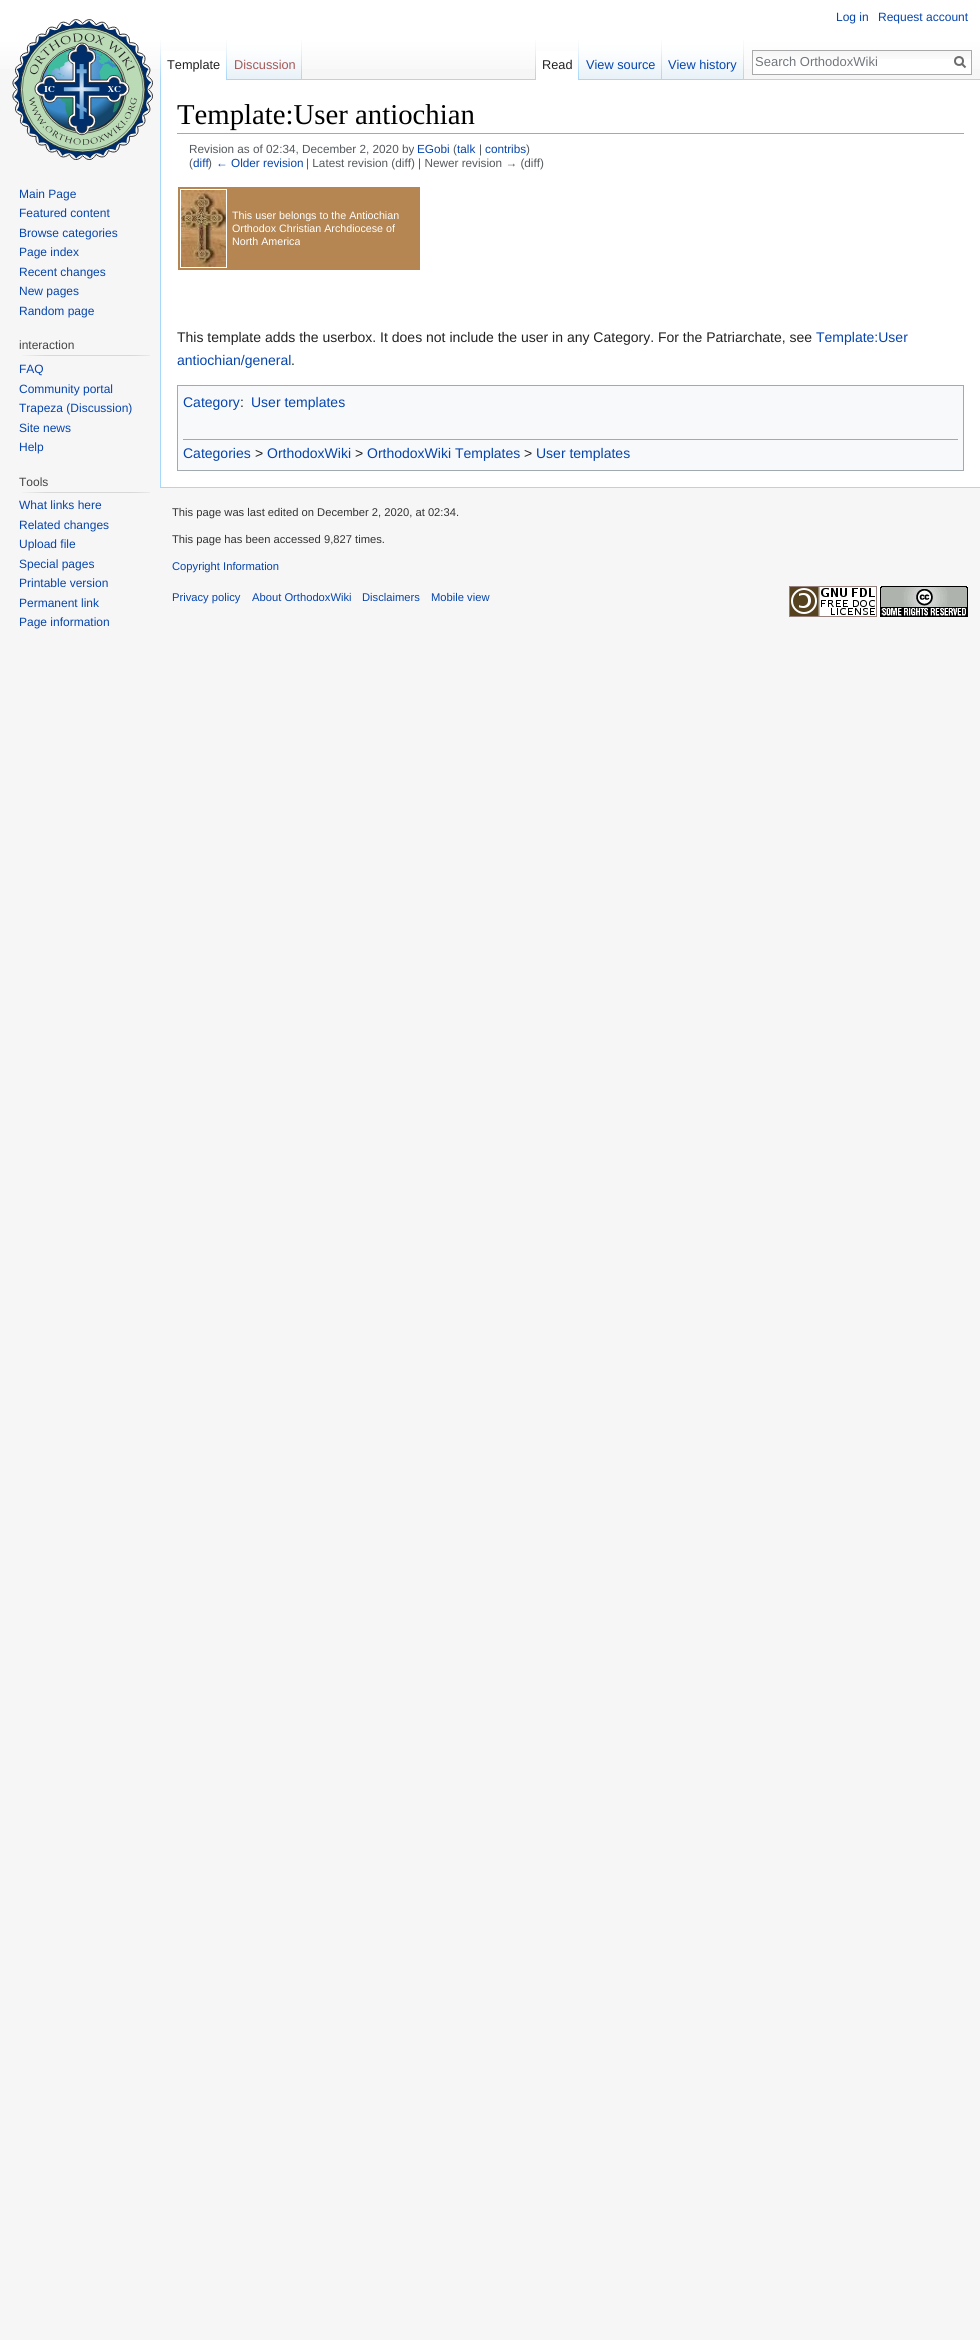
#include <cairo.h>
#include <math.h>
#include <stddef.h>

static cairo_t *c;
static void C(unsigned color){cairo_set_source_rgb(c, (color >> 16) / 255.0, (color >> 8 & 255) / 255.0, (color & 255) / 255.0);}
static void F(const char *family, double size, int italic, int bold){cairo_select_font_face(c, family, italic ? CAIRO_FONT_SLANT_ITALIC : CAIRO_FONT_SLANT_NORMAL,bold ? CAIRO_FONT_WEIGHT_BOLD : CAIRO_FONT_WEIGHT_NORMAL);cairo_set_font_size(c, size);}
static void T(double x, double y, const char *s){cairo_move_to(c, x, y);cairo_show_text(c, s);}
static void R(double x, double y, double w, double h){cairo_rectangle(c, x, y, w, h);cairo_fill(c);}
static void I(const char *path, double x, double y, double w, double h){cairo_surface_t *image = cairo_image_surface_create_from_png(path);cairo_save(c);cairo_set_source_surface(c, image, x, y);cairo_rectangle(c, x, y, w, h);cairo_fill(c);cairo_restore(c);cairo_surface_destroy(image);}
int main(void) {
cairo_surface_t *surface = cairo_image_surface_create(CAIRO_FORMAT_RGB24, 980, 2340);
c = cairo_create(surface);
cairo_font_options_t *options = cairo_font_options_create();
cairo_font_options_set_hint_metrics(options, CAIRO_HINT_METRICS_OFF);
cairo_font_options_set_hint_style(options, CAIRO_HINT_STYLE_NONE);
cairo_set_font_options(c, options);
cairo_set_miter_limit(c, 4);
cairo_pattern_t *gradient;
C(0xf6f6f6);
cairo_paint(c);
gradient = cairo_pattern_create_linear(490,0,490,80);
cairo_pattern_add_color_stop_rgba(gradient,.5,1,1,1,1);
cairo_pattern_add_color_stop_rgba(gradient,1,0.965,0.965,0.965,1);
cairo_set_source(c,gradient);
cairo_pattern_destroy(gradient);
R(0,0,980,69);
F("Liberation Sans",12,0,0);
C(0x0645ad);
T(836,21,"Log in");
T(878,21,"Request account");
I("1.png",160,40,1,39);
C(0xffffff);
R(161,51,65,29);
I("2.png",226,40,1,40);
F("Liberation Sans",12.75,0,0);
C(0x222222);
T(167,69,"Template");
I("3.png",227,40,75,40);
I("1.png",301,40,1,39);
C(0xa55858);
T(234,69,"Discussion");
I("1.png",535,40,1,39);
C(0xa7d7f9);
R(302,79,678,1);
C(0xffffff);
R(536,51,42,29);
I("2.png",578,40,1,40);
C(0x222222);
T(542,69,"Read");
I("4.png",579,40,83,40);
I("1.png",661,40,1,39);
C(0x0645ad);
T(586,69,"View source");
I("5.png",662,40,82,40);
I("1.png",743,40,1,39);
T(668,69,"View history");
C(0xffffff);
R(753,59,218,15);
I("6.png",753,51,218,8);
cairo_rectangle(c,752.5,50.5,219,24);
C(0xaaaaaa);
cairo_set_line_width(c,1);
cairo_stroke(c);
F("Liberation Sans",13,0,0);
C(0x72777d);
T(755,66,"Search OrthodoxWiki");
cairo_new_path(c);
cairo_move_to(c,965.5,67.5);
cairo_line_to(c,961.5,63.5);
C(0x6c6c6c);
cairo_set_line_width(c,2);
cairo_stroke(c);
cairo_arc(c,959,61,4,0,2 * M_PI);
cairo_stroke(c);
I("7.png",12,19,141,141);
F("Liberation Sans",12,0,0);
C(0x0645ad);
T(19,198,"Main Page");
T(19,217,"Featured content");
T(19,237,"Browse categories");
T(19,256,"Page index");
T(19,276,"Recent changes");
T(19,295,"New pages");
T(19,315,"Random page");
C(0x444444);
T(19,349,"interaction");
I("8.png",22,355,128,1);
C(0x0645ad);
T(19,373,"FAQ");
T(19,393,"Community portal");
T(19,412,"Trapeza (Discussion)");
T(19,432,"Site news");
T(19,451,"Help");
C(0x444444);
T(19,486,"Tools");
I("8.png",22,492,128,1);
C(0x0645ad);
T(19,509,"What links here");
T(19,529,"Related changes");
T(19,548,"Upload file");
T(19,568,"Special pages");
T(19,587,"Printable version");
T(19,607,"Permanent link");
T(19,626,"Page information");
C(0xffffff);
R(161,80,819,407);
C(0xa7d7f9);
R(160,487,820,1);
R(160,79,1,409);
C(0xa2a9b1);
R(177,133,787,1);
F("Liberation Serif",28.75,0,0);
C(0x000000);
T(177,124,"Template:User antiochian");
F("Liberation Sans",11.75,0,0);
C(0x54595d);
T(189,153,"Revision as of 02:34, December 2, 2020 by");
C(0x0645ad);
T(417,153,"EGobi");
C(0x54595d);
T(453,153,"(");
C(0x0645ad);
T(457,153,"talk");
C(0x54595d);
T(479,153,"|");
C(0x0645ad);
T(485,153,"contribs");
C(0x54595d);
T(526,153,")");
T(189,167,"(");
C(0x0645ad);
T(193,167,"diff");
C(0x54595d);
T(208,167,")");
C(0x0645ad);
T(216,167,"← Older revision");
C(0x54595d);
T(306,167,"| Latest revision (diff) | Newer revision → (diff)");
cairo_rectangle(c,179,188,240,81);
C(0xb58652);
cairo_stroke(c);
R(227,189,191,79);
I("9.png",181,190,45,77);
F("Liberation Sans",10.7,0,0);
C(0xffffff);
T(232,219,"This user belongs to the Antiochian");
T(232,232,"Orthodox Christian Archdiocese of");
T(232,245,"North America");
F("Liberation Sans",14,0,0);
C(0x222222);
T(177,342,"This template adds the userbox. It does not include the user in any Category. For the Patriarchate, see");
C(0x0645ad);
T(816,342,"Template:User");
T(177,365,"antiochian/general");
C(0x222222);
T(291,365,".");
C(0xf8f9fa);
cairo_rectangle(c,177.5,385.5,786,85);
cairo_fill_preserve(c);
C(0xa2a9b1);
cairo_set_line_width(c,1);
cairo_stroke(c);
C(0x0645ad);
T(183,407,"Category");
C(0x222222);
T(240,407,":");
C(0x0645ad);
T(251,407,"User templates");
C(0xa2a9b1);
R(183,439,775,1);
C(0x0645ad);
T(183,458,"Categories");
C(0x222222);
T(255,458,">");
C(0x0645ad);
T(267,458,"OrthodoxWiki");
C(0x222222);
T(355,458,">");
C(0x0645ad);
T(367,458,"OrthodoxWiki Templates");
C(0x222222);
T(524,458,">");
C(0x0645ad);
T(536,458,"User templates");
F("Liberation Sans",11.2,0,0);
C(0x333333);
T(172,516,"This page was last edited on December 2, 2020, at 02:34.");
T(172,543,"This page has been accessed 9,827 times.");
C(0x0645ad);
T(172,570,"Copyright Information");
T(172,601,"Privacy policy");
T(252,601,"About OrthodoxWiki");
T(362,601,"Disclaimers");
T(431,601,"Mobile view");
I("10.png",789,586,179,31);
cairo_surface_write_to_png(surface, "o.png");
cairo_font_options_destroy(options);
cairo_destroy(c);
cairo_surface_destroy(surface);
return 0;
}
